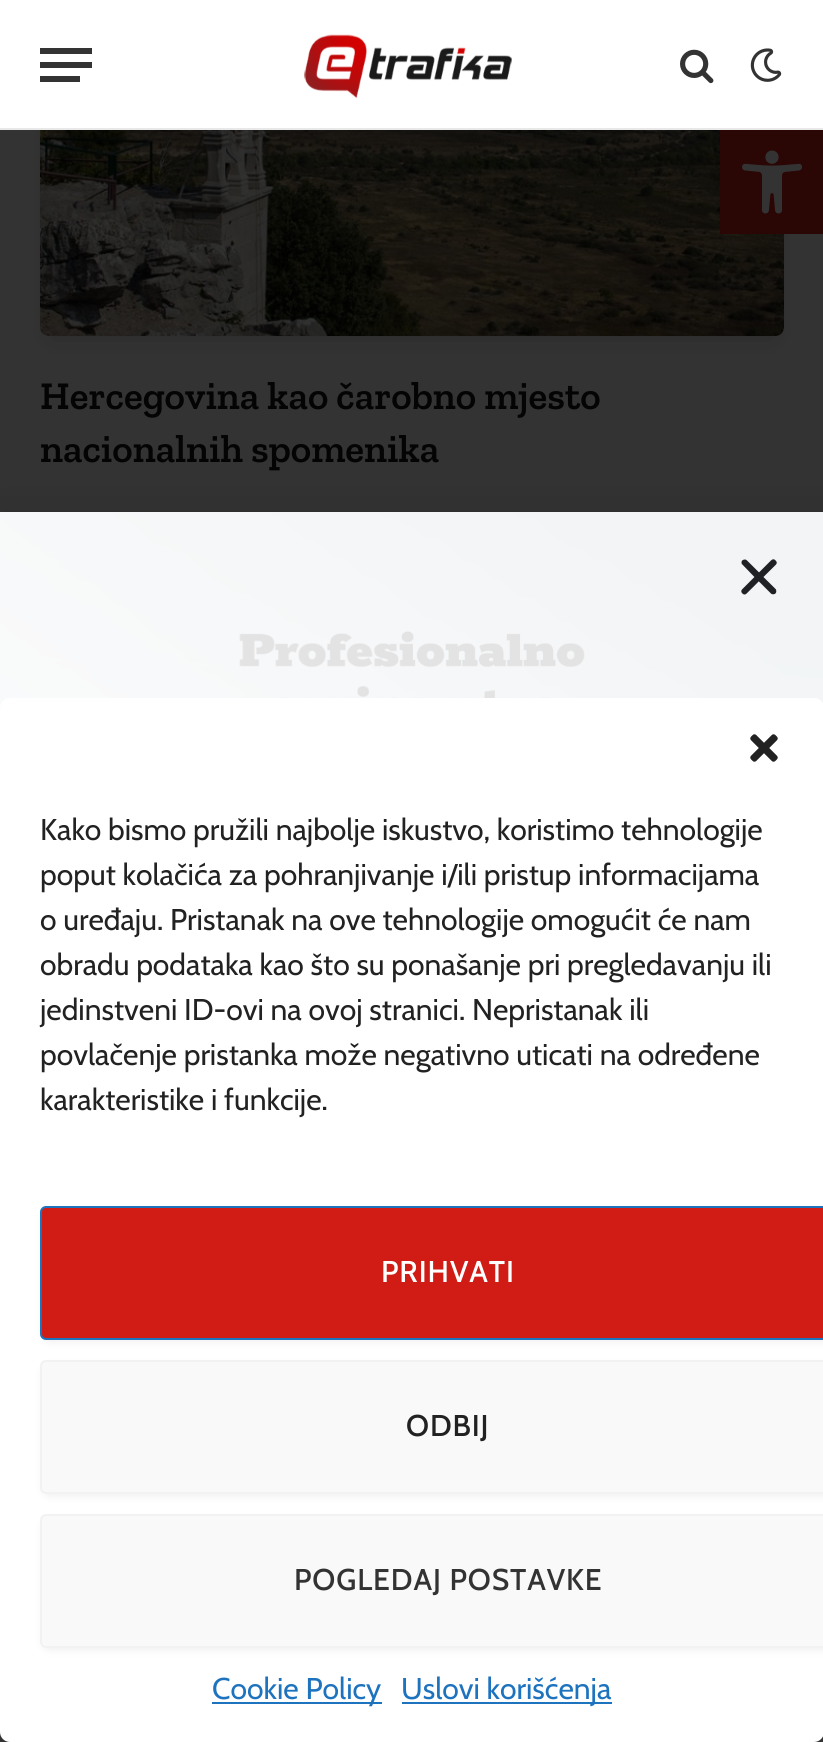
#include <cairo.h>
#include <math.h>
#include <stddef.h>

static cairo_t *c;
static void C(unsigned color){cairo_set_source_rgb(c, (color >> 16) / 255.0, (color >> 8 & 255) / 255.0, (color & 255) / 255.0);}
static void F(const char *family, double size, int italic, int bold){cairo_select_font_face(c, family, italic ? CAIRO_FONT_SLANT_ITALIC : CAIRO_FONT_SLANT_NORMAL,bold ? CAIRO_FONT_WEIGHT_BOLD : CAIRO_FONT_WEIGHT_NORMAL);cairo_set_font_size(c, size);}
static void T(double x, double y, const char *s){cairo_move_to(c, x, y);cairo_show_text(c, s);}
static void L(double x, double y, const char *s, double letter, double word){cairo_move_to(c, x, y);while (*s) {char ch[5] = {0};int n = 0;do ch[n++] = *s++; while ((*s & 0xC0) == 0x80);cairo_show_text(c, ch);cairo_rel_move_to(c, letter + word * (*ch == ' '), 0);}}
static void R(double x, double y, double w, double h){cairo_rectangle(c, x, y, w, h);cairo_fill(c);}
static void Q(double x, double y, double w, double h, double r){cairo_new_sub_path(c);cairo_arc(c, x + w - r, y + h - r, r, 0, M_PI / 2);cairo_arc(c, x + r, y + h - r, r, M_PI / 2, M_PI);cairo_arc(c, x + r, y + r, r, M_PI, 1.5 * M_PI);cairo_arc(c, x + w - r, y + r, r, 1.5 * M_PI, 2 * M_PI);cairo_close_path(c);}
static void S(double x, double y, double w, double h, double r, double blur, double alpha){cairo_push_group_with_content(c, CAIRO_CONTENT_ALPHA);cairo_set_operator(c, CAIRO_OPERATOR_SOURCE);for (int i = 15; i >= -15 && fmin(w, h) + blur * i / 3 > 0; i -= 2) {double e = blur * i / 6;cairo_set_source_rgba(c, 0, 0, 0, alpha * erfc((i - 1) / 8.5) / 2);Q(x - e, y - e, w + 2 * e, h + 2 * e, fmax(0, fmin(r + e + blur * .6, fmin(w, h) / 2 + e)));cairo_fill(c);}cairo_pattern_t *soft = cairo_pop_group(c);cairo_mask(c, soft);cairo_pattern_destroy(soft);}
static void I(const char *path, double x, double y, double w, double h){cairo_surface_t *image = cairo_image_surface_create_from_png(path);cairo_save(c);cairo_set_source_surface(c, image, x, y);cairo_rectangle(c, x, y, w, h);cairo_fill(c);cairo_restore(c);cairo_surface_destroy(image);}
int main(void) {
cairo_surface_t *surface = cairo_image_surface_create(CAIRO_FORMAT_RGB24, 823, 1742);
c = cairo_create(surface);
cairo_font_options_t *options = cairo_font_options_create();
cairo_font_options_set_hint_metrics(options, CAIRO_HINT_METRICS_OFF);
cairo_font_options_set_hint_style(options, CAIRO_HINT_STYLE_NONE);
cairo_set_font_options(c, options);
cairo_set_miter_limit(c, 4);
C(0x333333);
cairo_paint(c);
C(0x010205);
S(52,-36,720,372,0,12,.2);
I("5.png",40,130,744,206);
C(0x2a0604);
R(720,130,103,104);
I("1.png",742,150,61,64);
C(0xffffff);
R(0,0,823,128);
C(0xe8e8e8);
R(0,128,823,2);
C(0x333333);
R(40,76,40,6);
R(40,48,52,6);
R(40,62,52,6);
I("2.png",304,34,208,65);
I("3.png",680,49,34,35);
I("4.png",750,48,32,34);
F("Zilla Slab SemiBold",39.25,0,0);
C(0x040404);
T(40,409,"Hercegovina kao čarobno mjesto");
T(40,462,"nacionalnih spomenika");
C(0x000000);
S(-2,522,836,730,0,23,.2);
C(0xfcfcfc);
R(0,512,823,196);
I("6.png",0,512,823,196);
I("7.png",741,559,36,36);
C(0xffffff);
Q(0,698,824,1044,10);
cairo_fill(c);
I("8.png",750,734,28,28);
F("Cabin",30,0,0);
C(0x222222);
T(40,840,"Kako bismo pružili najbolje iskustvo, koristimo tehnologije");
T(40,885,"poput kolačića za pohranjivanje i/ili pristup informacijama");
T(40,930,"o uređaju. Pristanak na ove tehnologije omogućit će nam");
T(40,975,"obradu podataka kao što su ponašanje pri pregledavanju ili");
T(40,1020,"jedinstveni ID-ovi na ovoj stranici. Nepristanak ili");
T(40,1065,"povlačenje pristanka može negativno uticati na određene");
T(40,1110,"karakteristike i funkcije.");
C(0x000000);
S(48,1218,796,118,0,7,.16);
C(0xd01c14);
Q(41,1207,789,132,5);
cairo_fill_preserve(c);
C(0x1e73be);
cairo_stroke(c);
F("Cabin Medium",30,0,0);
C(0xffffff);
L(381,1282,"PRIHVATI",.9,0);
C(0x000000);
S(48,1372,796,118,0,7,.16);
C(0xf9f9f9);
Q(41,1361,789,132,5);
cairo_fill_preserve(c);
C(0xf2f2f2);
cairo_stroke(c);
C(0x222222);
L(406,1436,"ODBIJ",.9,0);
C(0x000000);
S(48,1526,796,118,0,7,.16);
C(0xf9f9f9);
Q(41,1515,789,132,5);
cairo_fill_preserve(c);
C(0xf2f2f2);
cairo_stroke(c);
C(0x333333);
L(294,1590,"POGLEDAJ POSTAVKE",.9,0);
C(0x1e73be);
R(212,1702,170,2);
F("Cabin",30,0,0);
T(212,1699,"Cookie Policy");
R(402,1702,210,2);
T(401,1699,"Uslovi korišćenja");
cairo_surface_write_to_png(surface, "o.png");
cairo_font_options_destroy(options);
cairo_destroy(c);
cairo_surface_destroy(surface);
return 0;
}
